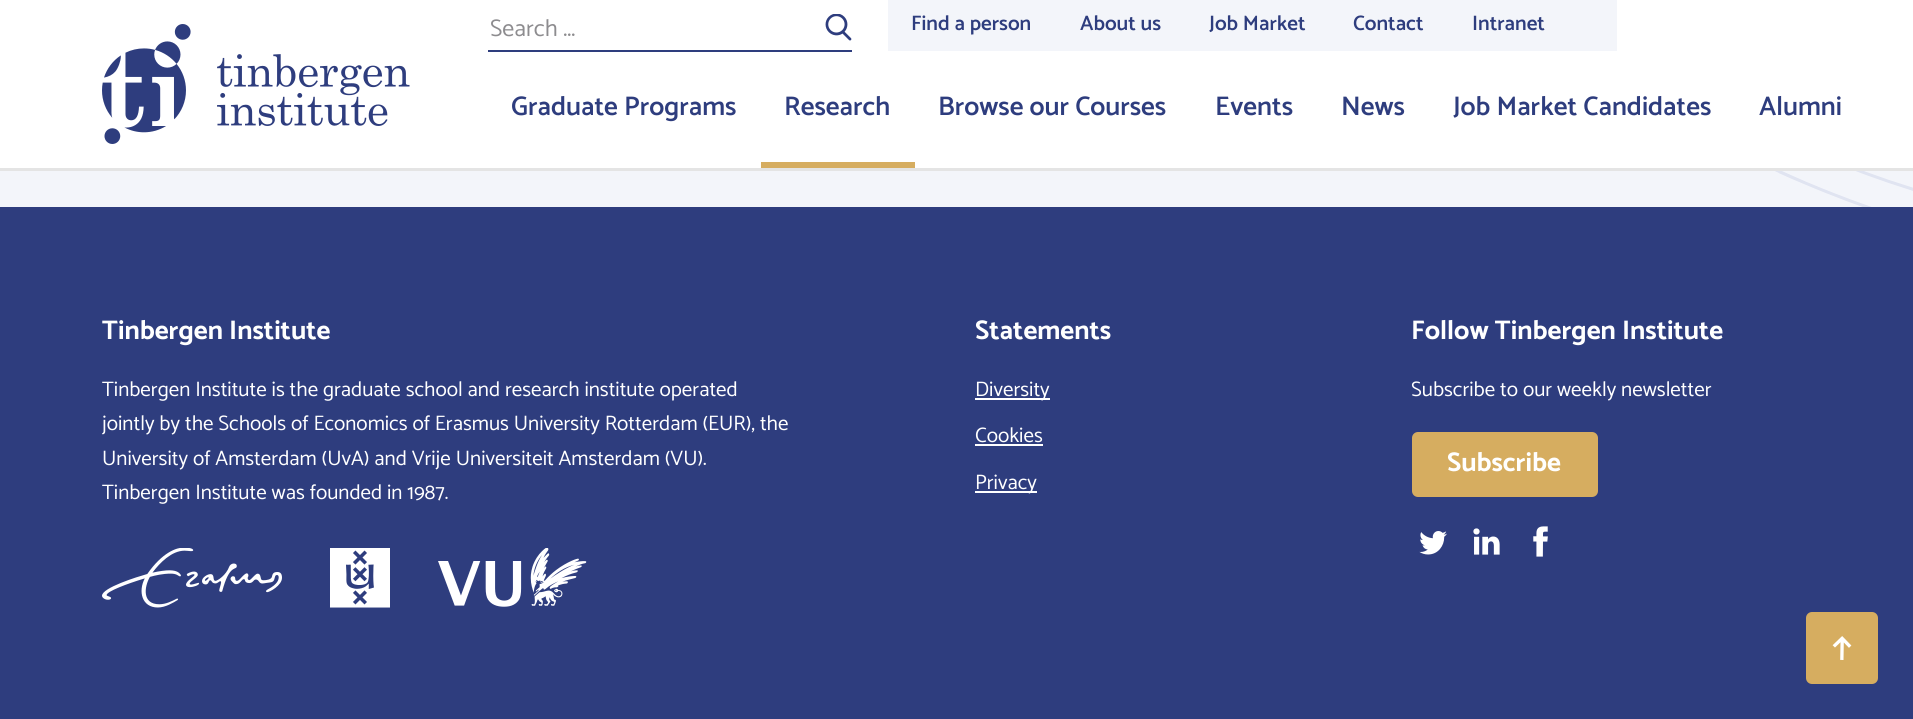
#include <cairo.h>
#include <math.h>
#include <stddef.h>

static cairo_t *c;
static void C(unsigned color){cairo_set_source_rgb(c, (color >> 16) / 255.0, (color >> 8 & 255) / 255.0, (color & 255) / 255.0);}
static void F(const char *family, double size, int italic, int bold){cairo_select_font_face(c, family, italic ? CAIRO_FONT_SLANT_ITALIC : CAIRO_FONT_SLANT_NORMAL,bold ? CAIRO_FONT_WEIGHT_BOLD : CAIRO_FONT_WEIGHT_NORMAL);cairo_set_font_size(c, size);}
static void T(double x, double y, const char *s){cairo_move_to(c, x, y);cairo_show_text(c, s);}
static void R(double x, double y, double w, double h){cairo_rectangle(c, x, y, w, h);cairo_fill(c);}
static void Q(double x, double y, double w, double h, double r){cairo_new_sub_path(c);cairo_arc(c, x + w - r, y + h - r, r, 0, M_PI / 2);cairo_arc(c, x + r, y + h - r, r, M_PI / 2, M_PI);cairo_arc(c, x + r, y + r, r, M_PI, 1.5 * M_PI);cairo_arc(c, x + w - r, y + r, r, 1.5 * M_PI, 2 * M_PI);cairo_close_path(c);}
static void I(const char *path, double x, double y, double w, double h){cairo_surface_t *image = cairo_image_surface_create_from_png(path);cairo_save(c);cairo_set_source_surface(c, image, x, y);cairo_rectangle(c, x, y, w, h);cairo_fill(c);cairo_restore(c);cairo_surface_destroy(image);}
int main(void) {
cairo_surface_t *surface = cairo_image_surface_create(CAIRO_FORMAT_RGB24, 1913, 719);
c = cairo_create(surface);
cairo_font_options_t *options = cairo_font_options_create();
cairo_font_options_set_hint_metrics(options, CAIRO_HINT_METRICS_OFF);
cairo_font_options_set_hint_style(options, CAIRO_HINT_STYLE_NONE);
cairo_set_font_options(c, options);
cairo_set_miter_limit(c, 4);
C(0xf3f5fa);
cairo_paint(c);
I("1.png",1775,171,138,36);
C(0xffffff);
R(0,0,1913,168);
C(0xe4e4e4);
R(0,168,1913,3);
I("2.png",102,24,308,120);
C(0x2e3d7e);
R(488,50,364,2);
F("Catamaran",24,0,0);
C(0x8d8c8f);
T(490,36,"Search ...");
I("3.png",825,14,27,27);
C(0xf3f5fa);
R(888,0,729,51);
F("Catamaran SemiBold",21,0,0);
C(0x2e3d7e);
T(911,30,"Find a person");
T(1080,30,"About us");
T(1209,30,"Job Market");
T(1353,30,"Contact");
T(1472,30,"Intranet");
F("Catamaran SemiBold",27,0,0);
T(511,115,"Graduate Programs");
C(0xd6ad60);
R(761,162,154,6);
C(0x2e3d7e);
T(784,115,"Research");
T(938,115,"Browse our Courses");
T(1215,115,"Events");
T(1341,115,"News");
T(1453,115,"Job Market Candidates");
T(1759,115,"Alumni");
R(0,207,1913,512);
F("Catamaran",27,0,1);
C(0xffffff);
T(102,339,"Tinbergen Institute");
F("Catamaran",21,0,0);
T(102,396,"Tinbergen Institute is the graduate school and research institute operated");
T(102,430,"jointly by the Schools of Economics of Erasmus University Rotterdam (EUR), the");
T(102,465,"University of Amsterdam (UvA) and Vrije Universiteit Amsterdam (VU).");
T(102,499,"Tinbergen Institute was founded in 1987.");
I("4.png",102,548,180,60);
I("5.png",330,548,60,60);
I("6.png",438,548,149,59);
F("Catamaran",27,0,1);
T(975,339,"Statements");
R(975,398,75,2);
F("Catamaran",21,0,0);
T(975,396,"Diversity");
T(975,442,"Cookies");
R(975,444,68,2);
R(975,491,62,2);
T(975,489,"Privacy");
F("Catamaran",27,0,1);
T(1411,339,"Follow Tinbergen Institute");
F("Catamaran",21,0,0);
T(1411,396,"Subscribe to our weekly newsletter");
C(0xd6ad60);
Q(1412,432,186,65,6);
cairo_fill(c);
F("Catamaran",27,0,1);
C(0xffffff);
T(1447,471,"Subscribe");
I("7.png",1419,531,28,24);
I("8.png",1473,528,27,27);
I("9.png",1533,526,15,31);
C(0xd6ad60);
Q(1806,612,72,72,6);
cairo_fill(c);
I("10.png",1832,636,20,24);
cairo_surface_write_to_png(surface, "o.png");
cairo_font_options_destroy(options);
cairo_destroy(c);
cairo_surface_destroy(surface);
return 0;
}
